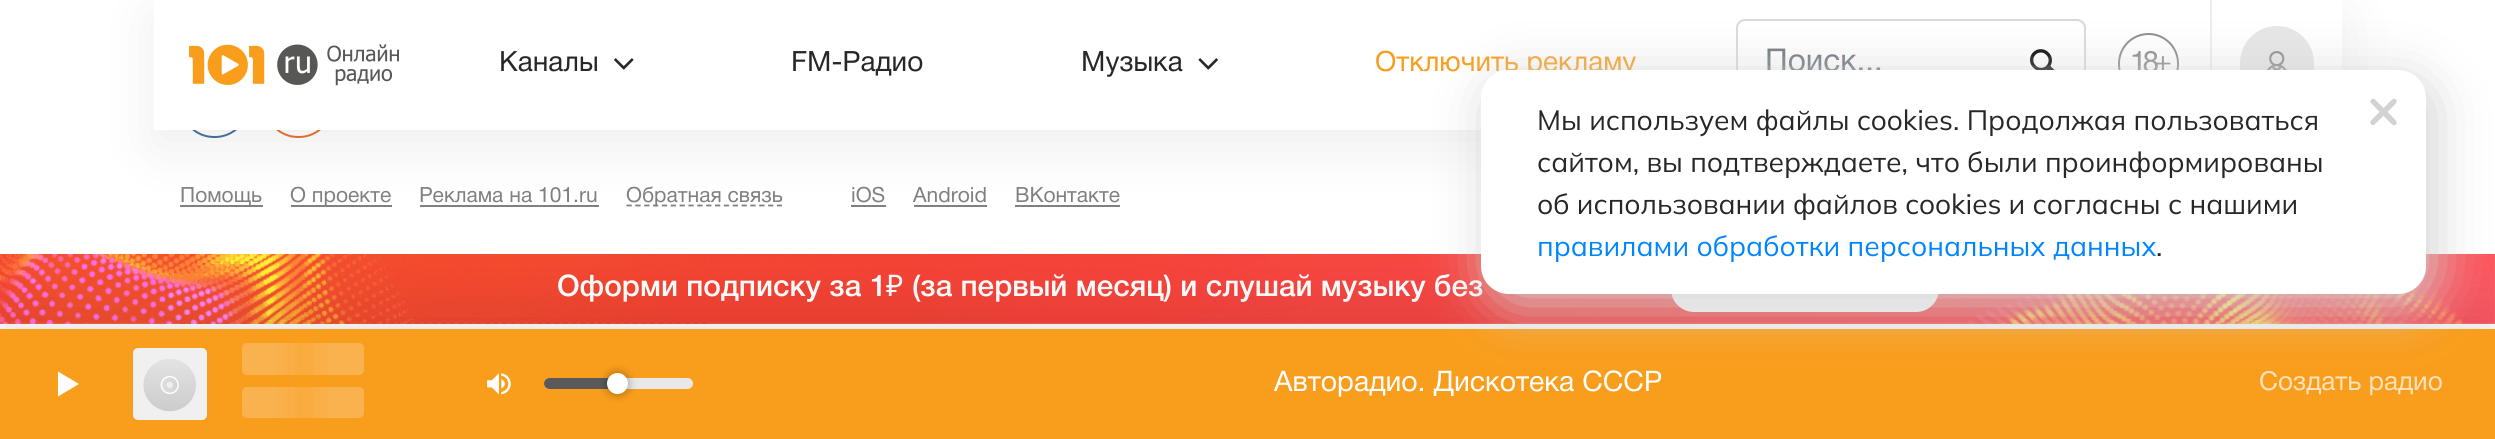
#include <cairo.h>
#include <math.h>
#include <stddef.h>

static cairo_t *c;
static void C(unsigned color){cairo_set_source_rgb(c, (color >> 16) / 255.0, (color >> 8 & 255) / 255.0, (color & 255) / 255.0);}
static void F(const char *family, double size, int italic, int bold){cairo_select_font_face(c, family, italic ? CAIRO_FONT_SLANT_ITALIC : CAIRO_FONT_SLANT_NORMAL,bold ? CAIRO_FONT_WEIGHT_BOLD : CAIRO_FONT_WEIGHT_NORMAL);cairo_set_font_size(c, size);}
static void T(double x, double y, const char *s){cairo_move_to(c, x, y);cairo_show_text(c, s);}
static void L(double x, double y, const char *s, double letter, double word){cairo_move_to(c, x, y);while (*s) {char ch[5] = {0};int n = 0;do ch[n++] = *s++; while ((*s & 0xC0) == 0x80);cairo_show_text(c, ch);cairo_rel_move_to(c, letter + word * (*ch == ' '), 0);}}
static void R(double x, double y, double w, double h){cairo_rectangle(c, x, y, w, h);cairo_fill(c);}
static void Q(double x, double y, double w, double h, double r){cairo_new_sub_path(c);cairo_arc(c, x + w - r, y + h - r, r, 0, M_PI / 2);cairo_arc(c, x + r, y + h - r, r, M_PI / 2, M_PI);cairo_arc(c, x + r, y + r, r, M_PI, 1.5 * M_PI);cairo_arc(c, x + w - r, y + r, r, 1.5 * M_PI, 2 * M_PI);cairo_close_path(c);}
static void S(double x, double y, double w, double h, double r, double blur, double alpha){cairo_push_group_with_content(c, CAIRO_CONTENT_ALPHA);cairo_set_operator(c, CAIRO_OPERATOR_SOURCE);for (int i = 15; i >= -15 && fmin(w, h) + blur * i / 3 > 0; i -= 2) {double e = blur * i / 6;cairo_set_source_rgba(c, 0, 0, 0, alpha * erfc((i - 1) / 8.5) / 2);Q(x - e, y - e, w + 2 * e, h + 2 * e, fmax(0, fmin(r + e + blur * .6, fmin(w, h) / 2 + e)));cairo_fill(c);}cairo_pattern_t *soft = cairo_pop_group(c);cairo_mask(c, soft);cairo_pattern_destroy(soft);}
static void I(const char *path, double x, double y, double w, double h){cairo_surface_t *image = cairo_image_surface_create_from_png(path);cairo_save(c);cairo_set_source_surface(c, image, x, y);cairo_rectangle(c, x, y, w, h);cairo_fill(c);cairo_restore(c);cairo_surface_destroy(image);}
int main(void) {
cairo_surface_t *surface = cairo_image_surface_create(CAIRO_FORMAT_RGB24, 2495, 439);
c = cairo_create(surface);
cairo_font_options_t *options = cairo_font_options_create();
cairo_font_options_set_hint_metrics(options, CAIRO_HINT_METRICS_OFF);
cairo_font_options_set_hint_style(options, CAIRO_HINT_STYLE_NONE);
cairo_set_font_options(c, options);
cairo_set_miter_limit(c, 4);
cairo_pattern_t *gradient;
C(0xffffff);
cairo_paint(c);
Q(181,71,67,66,33);
C(0x48729e);
cairo_stroke(c);
Q(265,71,67,66,33);
C(0xeb722e);
cairo_stroke(c);
C(0x808080);
R(180,205,83,2);
R(291,205,101,2);
R(420,205,179,2);
cairo_new_path(c);
cairo_move_to(c,626.5,205.5);
cairo_line_to(c,782,205.5);
cairo_set_line_width(c,1.8);
cairo_set_dash(c,(double[]){5.25,3.6},2,0);
cairo_stroke(c);
R(851,205,35,2);
R(914,205,73,2);
R(1015,205,105,2);
C(0x000000);
S(154,16,2188,131,0,30.5,.07);
C(0xffffff);
R(154,0,2188,130);
I("1.png",189,44,210,42);
F("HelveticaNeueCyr",28,0,0);
C(0x272727);
T(499,71,"Каналы");
I("2.png",614,58,20,12);
T(791,71,"FM-Радио");
T(1081,71,"Музыка");
I("3.png",1198,58,20,12);
C(0xf99d1c);
T(1375,71,"Отключить рекламу");
Q(1737,20,348,86,8);
C(0xdadada);
cairo_set_line_width(c,2);
cairo_set_dash(c,NULL,0,0);
cairo_stroke(c);
F("HelveticaNeueCyr",31.5,0,0);
C(0x6c757d);
T(1765,71,"Поиск...");
I("4.png",2030,49,25,21);
Q(2119,34,59,60,29.5);
C(0x8d8d8d);
cairo_stroke(c);
F("HelveticaNeueCyr",29.75,0,0);
L(2130,72,"18",-4,0);
L(2154,71,"+",-4,0);
C(0xededed);
R(2210,0,2,70);
C(0xe6e6e6);
Q(2240,26,74,76,37);
cairo_fill(c);
I("5.png",2267,51,20,19);
F("HelveticaNeueCyr",21,0,0);
C(0x808080);
T(180,202,"Помощь");
T(290,202,"О проекте");
T(419,202,"Реклама на 101.ru");
T(626,202,"Обратная связь");
T(851,202,"iOS");
T(913,202,"Android");
T(1015,202,"ВКонтакте");
cairo_new_path(c);
cairo_move_to(c,180,323);
cairo_line_to(c,707,323);
cairo_set_line_width(c,1.8);
cairo_set_dash(c,(double[]){5.25,3.45},2,0);
cairo_stroke(c);
I("6.png",0,254,2495,70);
F("HelveticaNeueCyr Medium",29.75,0,0);
C(0xffffff);
T(557,296,"Оформи подписку за 1");
F("Noto Sans",29.75,0,0);
T(886,296,"₽");
F("HelveticaNeueCyr Medium",29.75,0,0);
T(912,296,"(за первый месяц) и слушай музыку без");
Q(1671,266,268,46,23);
cairo_fill(c);
C(0x000000);
S(0,312,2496,110,0,30.5,.1);
C(0xf99d1c);
R(0,329,2495,110);
C(0xffffff);
cairo_new_path(c);
cairo_move_to(c,58,371.5);
cairo_line_to(c,58,396.5);
cairo_line_to(c,79,384);
cairo_close_path(c);
cairo_fill(c);
C(0xf0f0f0);
Q(133,348,74,72,5);
cairo_fill(c);
I("7.png",143,359,53,53);
C(0xfab24e);
Q(242,343,122,32,5);
cairo_fill(c);
gradient = cairo_pattern_create_linear(-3.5,359,609,359);
cairo_pattern_add_color_stop_rgba(gradient,.45,0.976,0.616,0.11,0);
cairo_pattern_add_color_stop_rgba(gradient,.5,0.976,0.616,0.11,.35);
cairo_pattern_add_color_stop_rgba(gradient,.55,0.976,0.616,0.11,0);
cairo_set_source(c,gradient);
cairo_pattern_destroy(gradient);
R(276,343,52,32);
C(0xfab24e);
Q(242,387,122,31,5);
cairo_fill(c);
gradient = cairo_pattern_create_linear(-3.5,403,609,403);
cairo_pattern_add_color_stop_rgba(gradient,.45,0.976,0.616,0.11,0);
cairo_pattern_add_color_stop_rgba(gradient,.5,0.976,0.616,0.11,.35);
cairo_pattern_add_color_stop_rgba(gradient,.55,0.976,0.616,0.11,0);
cairo_set_source(c,gradient);
cairo_pattern_destroy(gradient);
R(276,387,52,31);
I("8.png",487,373,24,22);
C(0xe8e8e8);
Q(544,378,149,11,5.5);
cairo_fill(c);
C(0x5a5a5a);
Q(544,378,74,11,5.5);
cairo_fill(c);
C(0x000000);
S(607,373,21,21,10.5,4.5,.35);
C(0xffffff);
cairo_arc(c,617.5,383.5,10.5,0,2 * M_PI);
cairo_fill(c);
F("HelveticaNeueCyr",28.4,0,0);
T(1274,391,"Авторадио. Дискотека СССР");
F("HelveticaNeueCyr",26.25,0,0);
C(0xfde2bb);
T(2259,390,"Создать радио");
C(0xd2d2d2);
S(1489,79,945,224,28,27,1);
C(0xffffff);
Q(1481,70,945,224,28);
cairo_fill(c);
F("Mulish ExtraLight",28,0,0);
C(0x272727);
T(1537,130,"Мы используем файлы cookies. Продолжая пользоваться");
C(0xd2d2d2);
cairo_new_path(c);
cairo_move_to(c,2375,99.5);
cairo_line_to(c,2392.5,117);
cairo_curve_to(c,2393.5,118.5,2398.5,121.5,2396,124.5);
cairo_curve_to(c,2393,127,2390,122,2388.5,121);
cairo_line_to(c,2370.5,102.5);
cairo_curve_to(c,2369.5,100,2373,97.5,2375,99.5);
cairo_close_path(c);
cairo_fill(c);
cairo_new_path(c);
cairo_move_to(c,2371,120.5);
cairo_line_to(c,2388.5,103);
cairo_curve_to(c,2390,102,2393,97,2396,99.5);
cairo_curve_to(c,2398.5,102.5,2393.5,105.5,2392.5,107);
cairo_line_to(c,2374,125);
cairo_curve_to(c,2371.5,126,2369,122.5,2371,120.5);
cairo_close_path(c);
cairo_fill(c);
C(0x272727);
T(1537,172,"сайтом, вы подтверждаете, что были проинформированы");
T(1537,214,"об использовании файлов cookies и согласны с нашими");
C(0x0085ff);
T(1537,256,"правилами обработки персональных данных");
C(0x272727);
T(2156,256,".");
cairo_surface_write_to_png(surface, "o.png");
cairo_font_options_destroy(options);
cairo_destroy(c);
cairo_surface_destroy(surface);
return 0;
}
